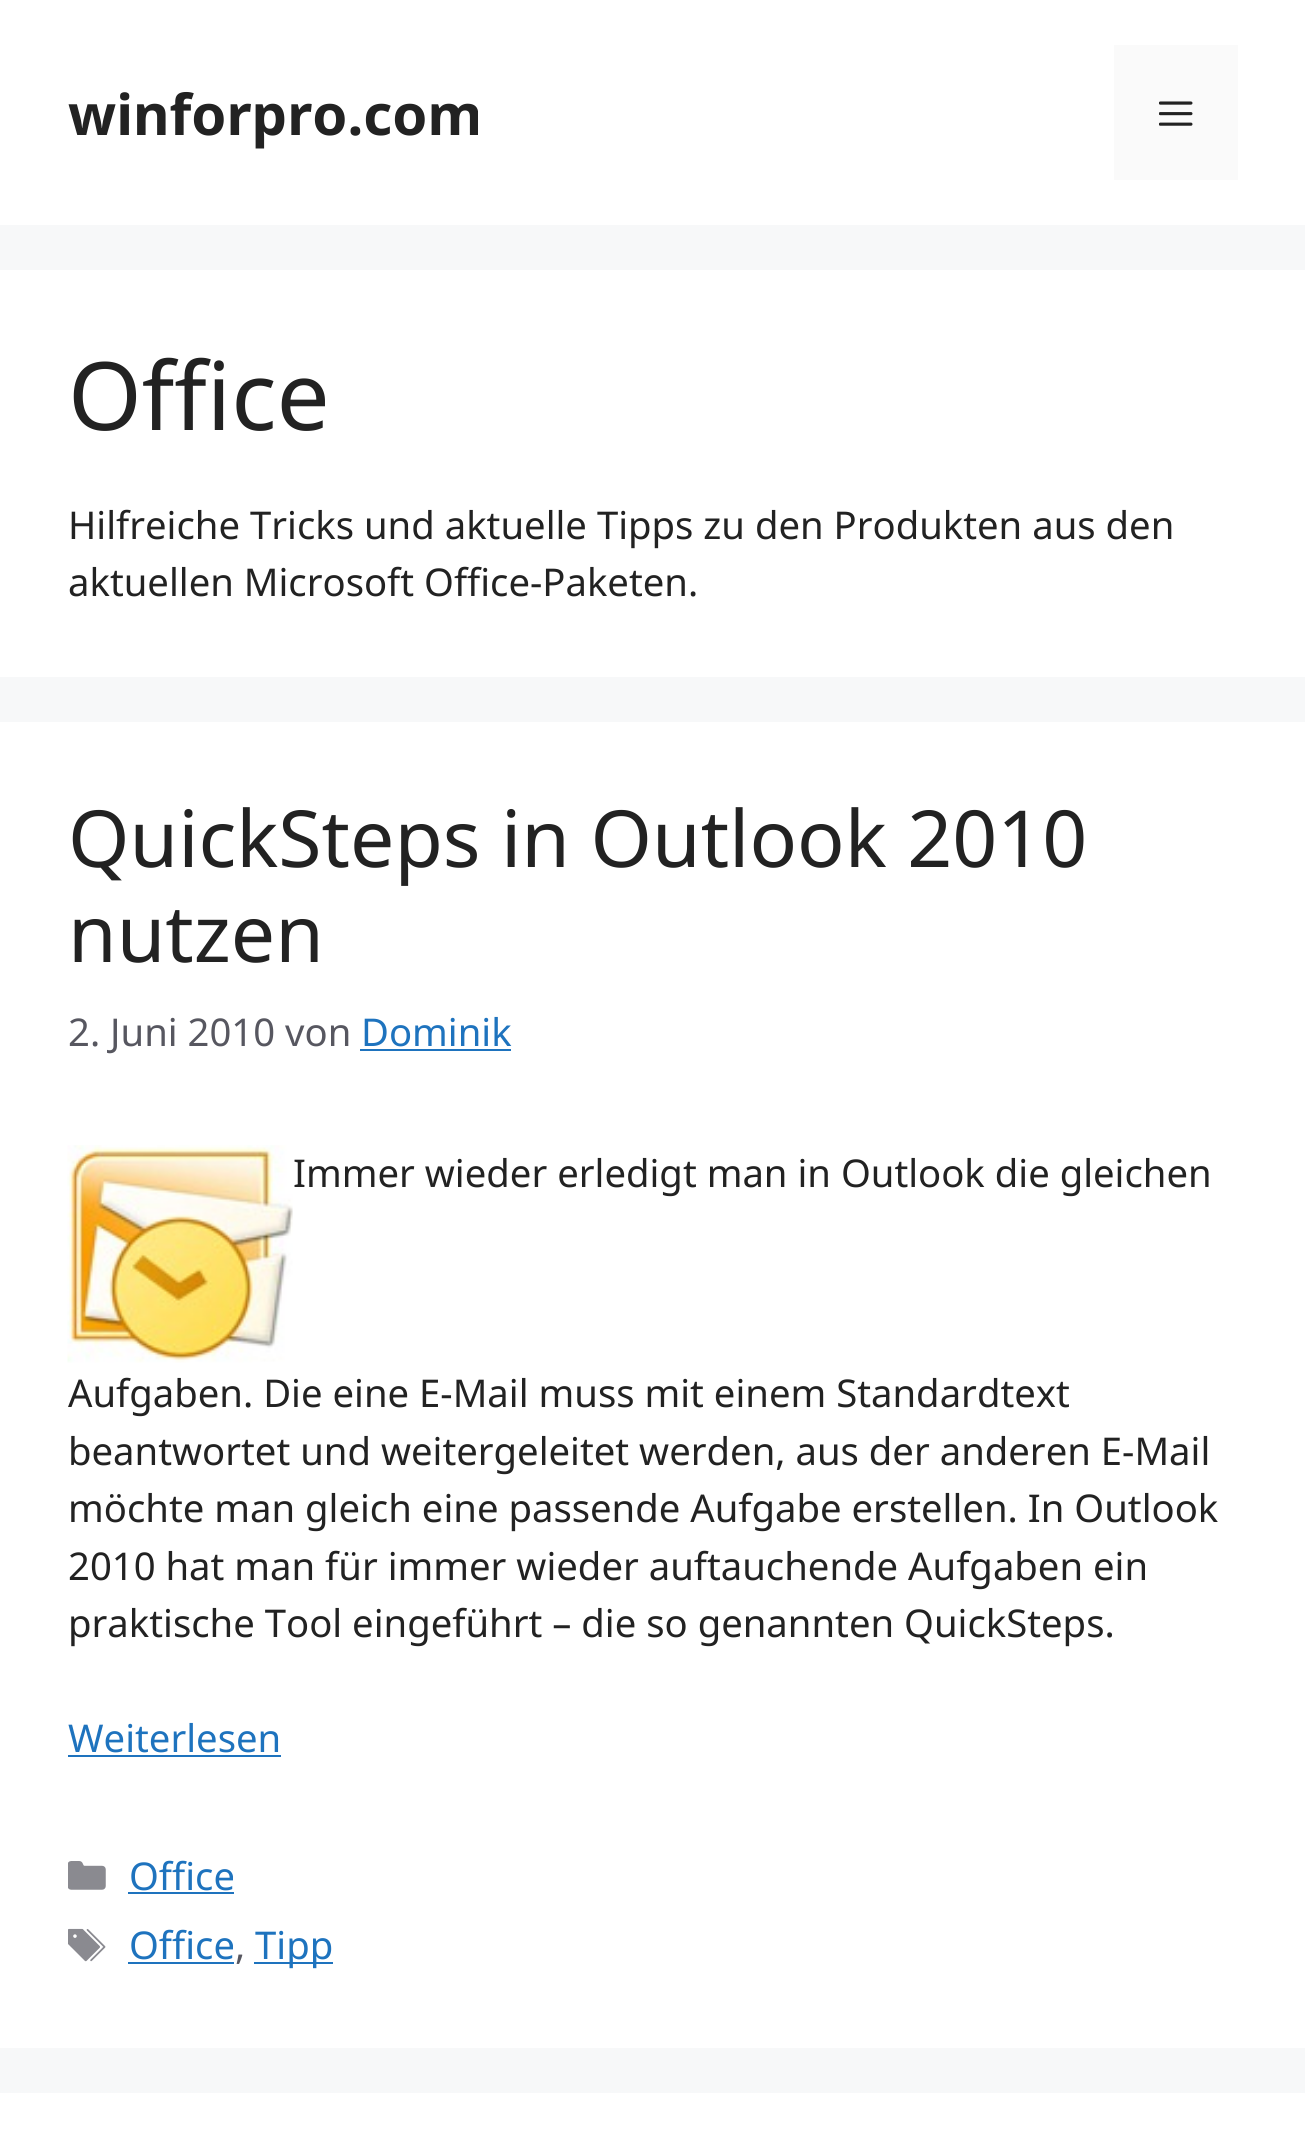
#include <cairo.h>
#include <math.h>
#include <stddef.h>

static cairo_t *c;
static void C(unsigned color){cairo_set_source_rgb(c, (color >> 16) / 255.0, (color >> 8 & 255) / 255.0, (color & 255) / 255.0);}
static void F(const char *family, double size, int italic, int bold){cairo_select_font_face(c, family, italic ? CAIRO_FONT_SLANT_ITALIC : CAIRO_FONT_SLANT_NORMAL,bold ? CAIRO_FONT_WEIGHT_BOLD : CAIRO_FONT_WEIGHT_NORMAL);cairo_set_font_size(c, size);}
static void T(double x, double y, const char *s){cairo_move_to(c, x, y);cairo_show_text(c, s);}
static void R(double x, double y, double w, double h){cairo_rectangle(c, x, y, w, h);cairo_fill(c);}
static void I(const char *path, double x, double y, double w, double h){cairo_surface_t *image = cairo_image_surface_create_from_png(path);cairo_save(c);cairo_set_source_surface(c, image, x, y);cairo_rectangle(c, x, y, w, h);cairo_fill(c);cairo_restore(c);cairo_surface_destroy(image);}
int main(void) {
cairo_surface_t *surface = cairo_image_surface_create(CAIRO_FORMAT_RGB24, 1305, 2143);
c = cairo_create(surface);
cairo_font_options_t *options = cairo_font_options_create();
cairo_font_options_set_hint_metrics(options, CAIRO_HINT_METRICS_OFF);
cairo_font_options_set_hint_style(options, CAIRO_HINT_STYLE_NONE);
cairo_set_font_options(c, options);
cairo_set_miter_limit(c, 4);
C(0xf7f8f9);
cairo_paint(c);
C(0xffffff);
R(0,0,1305,225);
F("Noto Sans",56.25,0,1);
C(0x222222);
T(68,135,"winforpro.com");
C(0xfafafa);
R(1114,45,124,135);
I("1.png",1159,101,34,25);
C(0xffffff);
R(0,270,1305,407);
F("Noto Sans",94.5,0,0);
C(0x222222);
T(68,430,"Office");
F("Noto Sans",38.25,0,0);
T(68,539,"Hilfreiche Tricks und aktuelle Tipps zu den Produkten aus den");
T(68,596,"aktuellen Microsoft Office-Paketen.");
C(0xffffff);
R(0,722,1305,1326);
F("Noto Sans",78.75,0,0);
C(0x222222);
T(68,867,"QuickSteps in Outlook 2010");
T(68,962,"nutzen");
F("Noto Sans",38.25,0,0);
C(0x575760);
T(68,1046,"2. Juni 2010 von");
C(0x1e73be);
T(361,1046,"Dominik");
R(360,1049,151,2);
I("2.png",67,1145,226,218);
C(0x222222);
T(293,1187,"Immer wieder erledigt man in Outlook die gleichen");
T(68,1407,"Aufgaben. Die eine E-Mail muss mit einem Standardtext");
T(68,1465,"beantwortet und weitergeleitet werden, aus der anderen E-Mail");
T(68,1522,"möchte man gleich eine passende Aufgabe erstellen. In Outlook");
T(68,1580,"2010 hat man für immer wieder auftauchende Aufgaben ein");
T(68,1637,"praktische Tool eingeführt – die so genannten QuickSteps.");
C(0x1e73be);
T(68,1752,"Weiterlesen");
R(68,1755,213,2);
I("3.png",68,1861,38,29);
T(129,1890,"Office");
R(128,1892,106,2);
I("4.png",68,1928,38,34);
T(129,1959,"Office");
R(128,1962,106,2);
C(0x575760);
T(235,1959,",");
C(0x1e73be);
R(254,1962,79,2);
T(255,1959,"Tipp");
C(0xffffff);
R(0,2093,1305,50);
cairo_surface_write_to_png(surface, "o.png");
cairo_font_options_destroy(options);
cairo_destroy(c);
cairo_surface_destroy(surface);
return 0;
}
